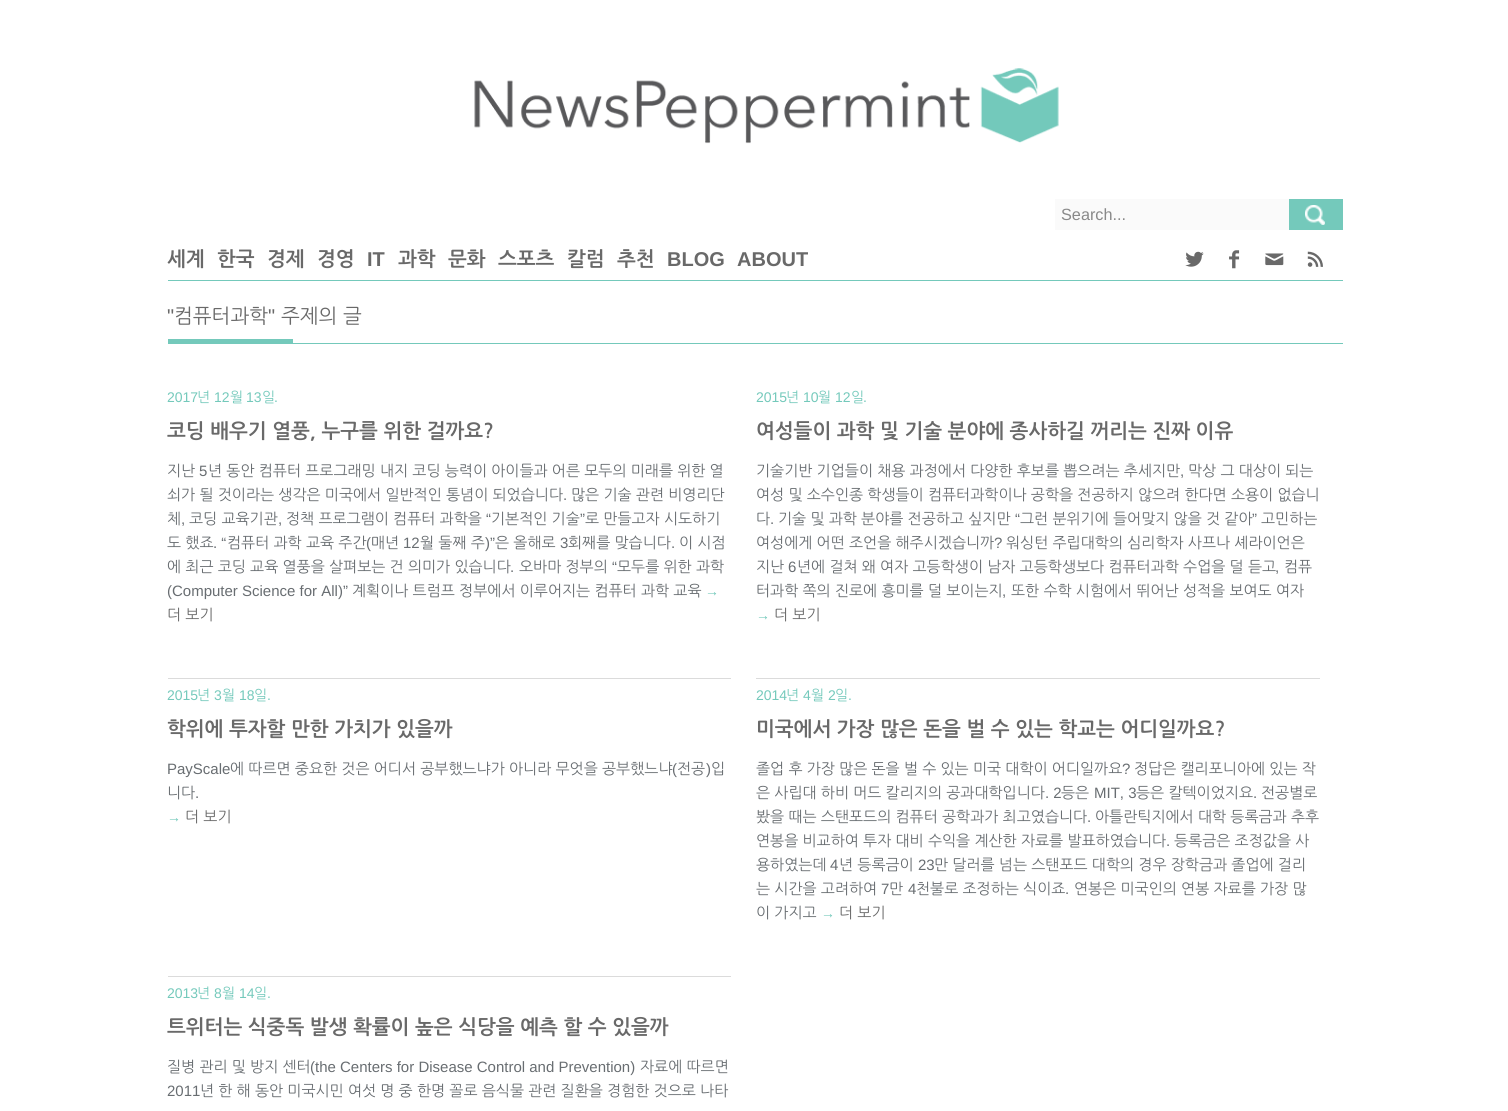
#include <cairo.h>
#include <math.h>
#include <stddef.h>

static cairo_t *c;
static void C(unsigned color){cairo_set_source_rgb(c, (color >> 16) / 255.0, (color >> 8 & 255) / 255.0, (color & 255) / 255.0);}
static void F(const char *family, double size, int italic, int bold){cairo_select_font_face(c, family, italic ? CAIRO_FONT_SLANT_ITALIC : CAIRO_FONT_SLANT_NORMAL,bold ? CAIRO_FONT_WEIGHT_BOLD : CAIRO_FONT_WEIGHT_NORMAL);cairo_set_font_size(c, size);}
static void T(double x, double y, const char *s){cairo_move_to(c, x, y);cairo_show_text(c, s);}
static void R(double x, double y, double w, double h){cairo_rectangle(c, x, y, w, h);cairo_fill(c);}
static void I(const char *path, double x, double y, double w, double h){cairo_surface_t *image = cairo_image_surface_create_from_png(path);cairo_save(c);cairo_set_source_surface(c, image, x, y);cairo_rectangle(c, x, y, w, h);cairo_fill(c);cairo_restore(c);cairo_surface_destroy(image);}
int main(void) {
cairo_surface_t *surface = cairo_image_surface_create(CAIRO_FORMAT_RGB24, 1508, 1111);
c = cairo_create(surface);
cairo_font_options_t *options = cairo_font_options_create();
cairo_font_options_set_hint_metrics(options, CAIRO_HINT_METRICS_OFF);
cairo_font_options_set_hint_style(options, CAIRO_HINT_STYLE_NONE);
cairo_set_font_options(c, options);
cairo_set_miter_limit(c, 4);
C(0xffffff);
cairo_paint(c);
I("1.png",474,68,585,76);
C(0x74c9bb);
R(168,280,1175,1);
C(0xfafafa);
R(1055,199,234,31);
F("Liberation Sans",16.25,0,0);
C(0x898989);
T(1061,220,"Search...");
C(0x74c9bb);
R(1289,199,54,31);
I("2.png",1305,205,20,20);
F("NanumGothic",20,0,1);
C(0x696969);
T(167,266,"세계");
T(217,266,"한국");
T(267,266,"경제");
T(317,266,"경영");
F("Liberation Sans",20,0,1);
T(367,266,"IT");
F("NanumGothic",20,0,1);
T(398,266,"과학");
T(448,266,"문화");
T(498,266,"스포츠");
T(567,266,"칼럼");
T(617,266,"추천");
F("Liberation Sans",20,0,1);
T(667,266,"BLOG");
T(737,266,"ABOUT");
I("3.png",1185,251,19,16);
I("4.png",1229,250,11,19);
I("5.png",1265,253,19,13);
I("6.png",1307,251,16,16);
C(0x74c9bb);
R(293,343,1050,1);
F("Liberation Sans",20,0,0);
C(0x696969);
T(167,323,"\"");
F("NanumGothic",20,0,0);
T(174,323,"컴퓨터과학");
F("Liberation Sans",20,0,0);
T(268,323,"\"");
F("NanumGothic",20,0,0);
T(281,323,"주제의 글");
C(0x74c9bb);
R(168,339,125,5);
F("Liberation Sans",14,0,0);
T(167,402,"2017");
F("NanumGothic",14,0,0);
T(197,402,"년");
F("Liberation Sans",14,0,0);
T(214,402,"12");
F("NanumGothic",14,0,0);
T(230,402,"월");
F("Liberation Sans",14,0,0);
T(246,402,"13");
F("NanumGothic",14,0,0);
T(262,402,"일");
F("Liberation Sans",14,0,0);
T(274,402,".");
F("NanumGothic",20,0,1);
C(0x696969);
T(167,438,"코딩 배우기 열풍, 누구를 위한 걸까요?");
F("NanumGothic",15,0,0);
C(0x686d71);
T(167,476,"지난");
F("Liberation Sans",15,0,0);
T(199,476,"5");
F("NanumGothic",15,0,0);
T(208,476,"년 동안 컴퓨터 프로그래밍 내지 코딩 능력이 아이들과 어른 모두의 미래를 위한 열");
T(167,500,"쇠가 될 것이라는 생각은 미국에서 일반적인 통념이 되었습니다");
F("Liberation Sans",15,0,0);
T(563,500,".");
F("NanumGothic",15,0,0);
T(571,500,"많은 기술 관련 비영리단");
T(167,524,"체");
T(189,524,"코딩 교육기관");
T(286,524,"정책 프로그램이 컴퓨터 과학을");
F("Liberation Sans",15,0,0);
T(486,524,"“");
F("NanumGothic",15,0,0);
T(491,524,"기본적인 기술");
F("Liberation Sans",15,0,0);
T(580,524,"”");
F("NanumGothic",15,0,0);
T(585,524,"로 만들고자 시도하기");
F("Liberation Sans",15,0,0);
T(181,524,",");
T(278,524,",");
F("NanumGothic",15,0,0);
T(167,548,"도 했죠");
F("Liberation Sans",15,0,0);
T(213,548,". “");
F("NanumGothic",15,0,0);
T(227,548,"컴퓨터 과학 교육 주간");
F("Liberation Sans",15,0,0);
T(366,548,"(");
F("NanumGothic",15,0,0);
T(371,548,"매년");
F("Liberation Sans",15,0,0);
T(403,548,"12");
F("NanumGothic",15,0,0);
T(420,548,"월 둘째 주");
F("Liberation Sans",15,0,0);
T(485,548,")”");
F("NanumGothic",15,0,0);
T(495,548,"은 올해로");
F("Liberation Sans",15,0,0);
T(560,548,"3");
F("NanumGothic",15,0,0);
T(568,548,"회째를 맞습니다");
F("Liberation Sans",15,0,0);
T(671,548,".");
F("NanumGothic",15,0,0);
T(679,548,"이 시점");
T(167,572,"에 최근 코딩 교육 열풍을 살펴보는 건 의미가 있습니다");
T(519,572,"오바마 정부의");
F("Liberation Sans",15,0,0);
T(612,572,"“");
F("NanumGothic",15,0,0);
T(617,572,"모두를 위한 과학");
F("Liberation Sans",15,0,0);
T(510,572,".");
T(167,596,"(Computer Science for All)”");
F("NanumGothic",15,0,0);
T(352,596,"계획이나 트럼프 정부에서 이루어지는 컴퓨터 과학 교육");
F("Liberation Sans",14,0,0);
C(0x74c9bb);
T(705,596,"→");
F("NanumGothic",15,0,0);
C(0x696969);
T(167,620,"더 보기");
F("Liberation Sans",14,0,0);
C(0x74c9bb);
T(756,402,"2015");
F("NanumGothic",14,0,0);
T(786,402,"년");
F("Liberation Sans",14,0,0);
T(803,402,"10");
F("NanumGothic",14,0,0);
T(818,402,"월");
F("Liberation Sans",14,0,0);
T(835,402,"12");
F("NanumGothic",14,0,0);
T(851,402,"일");
F("Liberation Sans",14,0,0);
T(863,402,".");
F("NanumGothic",20,0,1);
C(0x696969);
T(756,438,"여성들이 과학 및 기술 분야에 종사하길 꺼리는 진짜 이유");
F("NanumGothic",15,0,0);
C(0x686d71);
T(756,476,"기술기반 기업들이 채용 과정에서 다양한 후보를 뽑으려는 추세지만");
F("Liberation Sans",15,0,0);
T(1180,476,",");
F("NanumGothic",15,0,0);
T(1188,476,"막상 그 대상이 되는");
T(756,500,"여성 및 소수인종 학생들이 컴퓨터과학이나 공학을 전공하지 않으려 한다면 소용이 없습니");
T(756,524,"다");
T(778,524,"기술 및 과학 분야를 전공하고 싶지만");
F("Liberation Sans",15,0,0);
T(1015,524,"“");
F("NanumGothic",15,0,0);
T(1020,524,"그런 분위기에 들어맞지 않을 것 같아");
F("Liberation Sans",15,0,0);
T(1252,524,"”");
F("NanumGothic",15,0,0);
T(1261,524,"고민하는");
F("Liberation Sans",15,0,0);
T(770,524,".");
F("NanumGothic",15,0,0);
T(756,548,"여성에게 어떤 조언을 해주시겠습니까");
F("Liberation Sans",15,0,0);
T(994,548,"?");
F("NanumGothic",15,0,0);
T(1006,548,"워싱턴 주립대학의 심리학자 사프나 셰라이언은");
T(756,572,"지난");
F("Liberation Sans",15,0,0);
T(788,572,"6");
F("NanumGothic",15,0,0);
T(797,572,"년에 걸쳐 왜 여자 고등학생이 남자 고등학생보다 컴퓨터과학 수업을 덜 듣고");
F("Liberation Sans",15,0,0);
T(1275,572,",");
F("NanumGothic",15,0,0);
T(1284,572,"컴퓨");
T(756,596,"터과학 쪽의 진로에 흥미를 덜 보이는지");
F("Liberation Sans",15,0,0);
T(1002,596,",");
F("NanumGothic",15,0,0);
T(1011,596,"또한 수학 시험에서 뛰어난 성적을 보여도 여자");
F("Liberation Sans",14,0,0);
C(0x74c9bb);
T(756,620,"→");
F("NanumGothic",15,0,0);
C(0x696969);
T(774,620,"더 보기");
C(0xdbdbdb);
R(168,678,563,1);
F("Liberation Sans",14,0,0);
C(0x74c9bb);
T(167,700,"2015");
F("NanumGothic",14,0,0);
T(197,700,"년");
F("Liberation Sans",14,0,0);
T(214,700,"3");
F("NanumGothic",14,0,0);
T(222,700,"월");
F("Liberation Sans",14,0,0);
T(239,700,"18");
F("NanumGothic",14,0,0);
T(254,700,"일");
F("Liberation Sans",14,0,0);
T(267,700,".");
F("NanumGothic",20,0,1);
C(0x696969);
T(167,736,"학위에 투자할 만한 가치가 있을까");
F("Liberation Sans",15,0,0);
C(0x686d71);
T(167,774,"PayScale");
F("NanumGothic",15,0,0);
T(230,774,"에 따르면 중요한 것은 어디서 공부했느냐가 아니라 무엇을 공부했느냐");
F("Liberation Sans",15,0,0);
T(672,774,"(");
F("NanumGothic",15,0,0);
T(677,774,"전공");
F("Liberation Sans",15,0,0);
T(706,774,")");
F("NanumGothic",15,0,0);
T(711,774,"입");
T(167,798,"니다");
F("Liberation Sans",15,0,0);
T(195,798,".");
F("Liberation Sans",14,0,0);
C(0x74c9bb);
T(167,822,"→");
F("NanumGothic",15,0,0);
C(0x696969);
T(185,822,"더 보기");
C(0xdbdbdb);
R(756,678,564,1);
F("Liberation Sans",14,0,0);
C(0x74c9bb);
T(756,700,"2014");
F("NanumGothic",14,0,0);
T(786,700,"년");
F("Liberation Sans",14,0,0);
T(803,700,"4");
F("NanumGothic",14,0,0);
T(811,700,"월");
F("Liberation Sans",14,0,0);
T(828,700,"2");
F("NanumGothic",14,0,0);
T(835,700,"일");
F("Liberation Sans",14,0,0);
T(848,700,".");
F("NanumGothic",20,0,1);
C(0x696969);
T(756,736,"미국에서 가장 많은 돈을 벌 수 있는 학교는 어디일까요?");
F("NanumGothic",15,0,0);
C(0x686d71);
T(756,774,"졸업 후 가장 많은 돈을 벌 수 있는 미국 대학이 어디일까요");
F("Liberation Sans",15,0,0);
T(1122,774,"?");
F("NanumGothic",15,0,0);
T(1134,774,"정답은 캘리포니아에 있는 작");
T(756,798,"은 사립대 하비 머드 칼리지의 공과대학입니다");
F("Liberation Sans",15,0,0);
T(1045,798,". 2");
F("NanumGothic",15,0,0);
T(1061,798,"등은");
F("Liberation Sans",15,0,0);
T(1094,798,"MIT, 3");
F("NanumGothic",15,0,0);
T(1136,798,"등은 칼텍이었지요");
F("Liberation Sans",15,0,0);
T(1253,798,".");
F("NanumGothic",15,0,0);
T(1261,798,"전공별로");
T(756,822,"봤을 때는 스탠포드의 컴퓨터 공학과가 최고였습니다");
F("Liberation Sans",15,0,0);
T(1087,822,".");
F("NanumGothic",15,0,0);
T(1095,822,"아틀란틱지에서 대학 등록금과 추후");
T(756,846,"연봉을 비교하여 투자 대비 수익을 계산한 자료를 발표하였습니다");
F("Liberation Sans",15,0,0);
T(1166,846,".");
F("NanumGothic",15,0,0);
T(1174,846,"등록금은 조정값을 사");
T(756,870,"용하였는데");
F("Liberation Sans",15,0,0);
T(830,870,"4");
F("NanumGothic",15,0,0);
T(839,870,"년 등록금이");
F("Liberation Sans",15,0,0);
T(918,870,"23");
F("NanumGothic",15,0,0);
T(934,870,"만 달러를 넘는 스탠포드 대학의 경우 장학금과 졸업에 걸리");
T(756,894,"는 시간을 고려하여");
F("Liberation Sans",15,0,0);
T(881,894,"7");
F("NanumGothic",15,0,0);
T(889,894,"만");
F("Liberation Sans",15,0,0);
T(908,894,"4");
F("NanumGothic",15,0,0);
T(916,894,"천불로 조정하는 식이죠");
F("Liberation Sans",15,0,0);
T(1065,894,".");
F("NanumGothic",15,0,0);
T(1074,894,"연봉은 미국인의 연봉 자료를 가장 많");
T(756,918,"이 가지고");
F("Liberation Sans",14,0,0);
C(0x74c9bb);
T(821,918,"→");
F("NanumGothic",15,0,0);
C(0x696969);
T(839,918,"더 보기");
C(0xdbdbdb);
R(168,976,563,1);
F("Liberation Sans",14,0,0);
C(0x74c9bb);
T(167,998,"2013");
F("NanumGothic",14,0,0);
T(197,998,"년");
F("Liberation Sans",14,0,0);
T(214,998,"8");
F("NanumGothic",14,0,0);
T(222,998,"월");
F("Liberation Sans",14,0,0);
T(239,998,"14");
F("NanumGothic",14,0,0);
T(254,998,"일");
F("Liberation Sans",14,0,0);
T(267,998,".");
F("NanumGothic",20,0,1);
C(0x696969);
T(167,1034,"트위터는 식중독 발생 확률이 높은 식당을 예측 할 수 있을까");
F("NanumGothic",15,0,0);
C(0x686d71);
T(167,1072,"질병 관리 및 방지 센터");
F("Liberation Sans",15,0,0);
T(310,1072,"(the Centers for Disease Control and Prevention)");
F("NanumGothic",15,0,0);
T(640,1072,"자료에 따르면");
F("Liberation Sans",15,0,0);
T(167,1096,"2011");
F("NanumGothic",15,0,0);
T(200,1096,"년 한 해 동안 미국시민 여섯 명 중 한명 꼴로 음식물 관련 질환을 경험한 것으로 나타");
cairo_surface_write_to_png(surface, "o.png");
cairo_font_options_destroy(options);
cairo_destroy(c);
cairo_surface_destroy(surface);
return 0;
}
